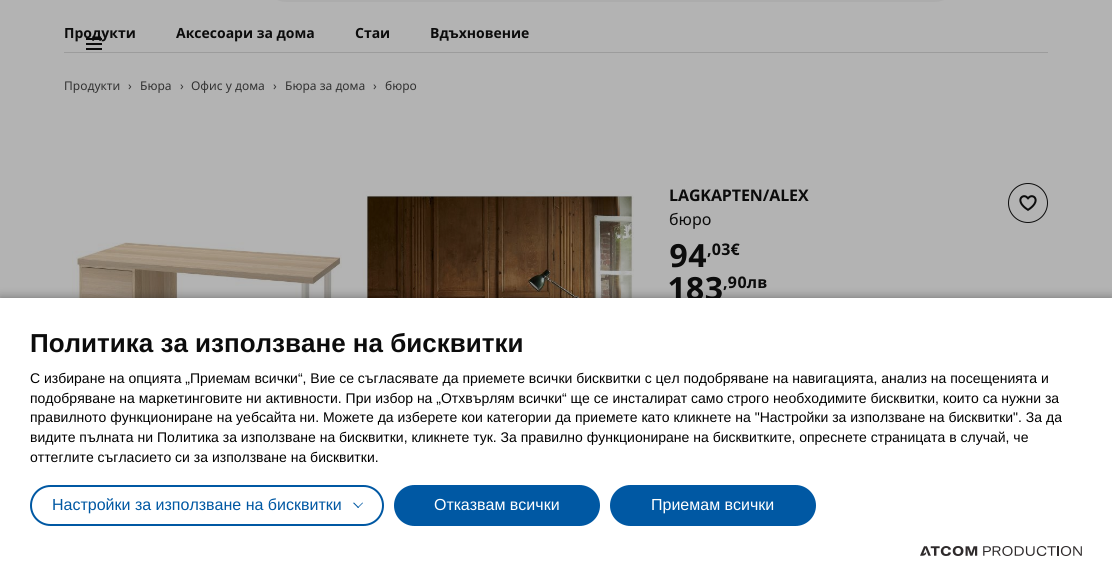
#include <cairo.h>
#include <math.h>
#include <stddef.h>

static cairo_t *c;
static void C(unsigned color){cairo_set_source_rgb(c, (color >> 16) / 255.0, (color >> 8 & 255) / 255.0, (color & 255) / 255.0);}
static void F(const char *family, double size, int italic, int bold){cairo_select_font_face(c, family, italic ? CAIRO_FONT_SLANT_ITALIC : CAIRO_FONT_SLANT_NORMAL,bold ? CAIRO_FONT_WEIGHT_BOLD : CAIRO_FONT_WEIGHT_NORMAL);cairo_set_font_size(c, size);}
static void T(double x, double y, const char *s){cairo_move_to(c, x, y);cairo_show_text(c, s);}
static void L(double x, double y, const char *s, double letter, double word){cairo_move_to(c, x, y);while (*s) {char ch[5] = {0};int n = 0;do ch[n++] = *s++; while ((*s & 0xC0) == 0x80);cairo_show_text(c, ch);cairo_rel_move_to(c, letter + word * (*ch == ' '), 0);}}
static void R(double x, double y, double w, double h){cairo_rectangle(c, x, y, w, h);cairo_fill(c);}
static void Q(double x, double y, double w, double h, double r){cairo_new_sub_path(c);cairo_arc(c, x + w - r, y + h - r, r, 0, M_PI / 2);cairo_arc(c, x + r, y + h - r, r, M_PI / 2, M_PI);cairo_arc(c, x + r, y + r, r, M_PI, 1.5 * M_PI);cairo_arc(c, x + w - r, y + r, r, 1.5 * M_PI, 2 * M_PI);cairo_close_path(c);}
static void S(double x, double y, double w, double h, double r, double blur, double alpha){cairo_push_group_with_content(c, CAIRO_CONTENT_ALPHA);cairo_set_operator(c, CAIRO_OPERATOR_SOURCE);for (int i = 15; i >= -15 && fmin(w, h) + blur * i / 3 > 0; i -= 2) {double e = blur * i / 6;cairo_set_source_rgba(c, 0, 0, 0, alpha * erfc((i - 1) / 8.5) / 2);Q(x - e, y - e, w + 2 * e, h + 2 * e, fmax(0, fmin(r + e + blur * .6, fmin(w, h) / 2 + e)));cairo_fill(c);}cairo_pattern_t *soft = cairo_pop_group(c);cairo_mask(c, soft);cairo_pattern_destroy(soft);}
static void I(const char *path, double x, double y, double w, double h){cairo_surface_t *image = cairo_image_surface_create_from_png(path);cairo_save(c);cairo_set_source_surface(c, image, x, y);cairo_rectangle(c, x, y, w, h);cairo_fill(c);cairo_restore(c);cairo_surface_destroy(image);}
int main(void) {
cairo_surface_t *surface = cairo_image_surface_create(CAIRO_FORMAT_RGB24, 1112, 573);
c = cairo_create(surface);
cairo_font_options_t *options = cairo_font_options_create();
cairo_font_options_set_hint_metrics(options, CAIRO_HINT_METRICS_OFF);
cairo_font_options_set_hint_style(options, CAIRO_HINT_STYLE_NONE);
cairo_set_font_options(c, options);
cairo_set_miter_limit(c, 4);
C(0xb3b3b3);
cairo_paint(c);
C(0xacacac);
Q(261,-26,699,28,26);
cairo_fill(c);
C(0x9c9c9c);
R(64,52,984,1);
F("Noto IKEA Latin",14,0,1);
C(0x0c0c0c);
T(64,38,"Продукти");
T(176,38,"Аксесоари за дома");
T(355,38,"Стаи");
T(430,38,"Вдъхновение");
I("1.png",86,38,16,12);
F("Noto IKEA Latin",12,0,0);
C(0x323232);
T(64,90,"Продукти");
T(128,90,"›");
T(140,90,"Бюра");
T(180,90,"›");
T(191,90,"Офис у дома");
T(273,90,"›");
T(285,90,"Бюра за дома");
T(373,90,"›");
T(385,90,"бюро");
I("2.png",72,242,270,56);
I("3.png",362,191,272,107);
F("Noto IKEA Latin",16,0,1);
C(0x0c0c0c);
L(669,201,"LAGKAPTEN/ALEX",-.1,0);
F("Noto IKEA Latin",16,0,0);
T(669,225,"бюро");
F("Noto IKEA Latin",32,0,1);
T(669,267,"94");
F("Noto IKEA Latin",16,0,1);
T(707,255,",03€");
F("Noto IKEA Latin",32,0,1);
T(669,300,"183");
F("Noto IKEA Latin",16,0,1);
T(723,288,",90лв");
cairo_new_path(c);
cairo_arc(c,1028,203,19.5,0,2 * M_PI);
cairo_set_line_width(c,1);
cairo_stroke(c);
I("4.png",1019,195,18,16);
C(0x000000);
S(0,298,1112,275,0,5,.37);
C(0xffffff);
R(0,298,1112,275);
F("Liberation Sans",26,0,1);
C(0x0c0c0c);
T(30,352,"Политика за използване на бисквитки");
F("Liberation Sans",14,0,0);
C(0x000000);
T(30,383,"С избиране на опцията „Приемам всички“, Вие се съгласявате да приемете всички бисквитки с цел подобряване на навигацията, анализ на посещенията и");
T(30,403,"подобряване на маркетинговите ни активности. При избор на „Отхвърлям всички“ ще се инсталират само строго необходимитe бисквитки, които са нужни за");
T(30,422,"правилното функциониране на уебсайта ни. Можете да изберете кои категории да приемете като кликнете на \"Настройки за използване на бисквитки\". За да");
T(30,442,"видите пълната ни Политика за използване на бисквитки, кликнете тук. За правилно функциониране на бисквитките, опреснете страницата в случай, че");
T(30,462,"оттеглите съгласието си за използване на бисквитки.");
Q(31,486,352,39,19.5);
C(0x0058a3);
cairo_set_line_width(c,2);
cairo_stroke(c);
F("Liberation Sans",16,0,0);
T(52,510,"Настройки за използване на бисквитки");
cairo_new_path(c);
cairo_move_to(c,362.5,502.5);
cairo_line_to(c,363,503);
cairo_line_to(c,358,508);
cairo_line_to(c,357.5,507.5);
cairo_close_path(c);
cairo_fill(c);
cairo_new_path(c);
cairo_move_to(c,354,502.5);
cairo_line_to(c,359,507.5);
cairo_line_to(c,358,508);
cairo_line_to(c,353,503);
cairo_close_path(c);
cairo_fill(c);
Q(395,486,204,39,19.5);
cairo_fill_preserve(c);
cairo_stroke(c);
C(0xffffff);
T(434,510,"Отказвам всички");
C(0x0058a3);
Q(611,486,204,39,19.5);
cairo_fill_preserve(c);
cairo_stroke(c);
C(0xffffff);
T(651,510,"Приемам всички");
I("5.png",920,546,162,10);
cairo_surface_write_to_png(surface, "o.png");
cairo_font_options_destroy(options);
cairo_destroy(c);
cairo_surface_destroy(surface);
return 0;
}
